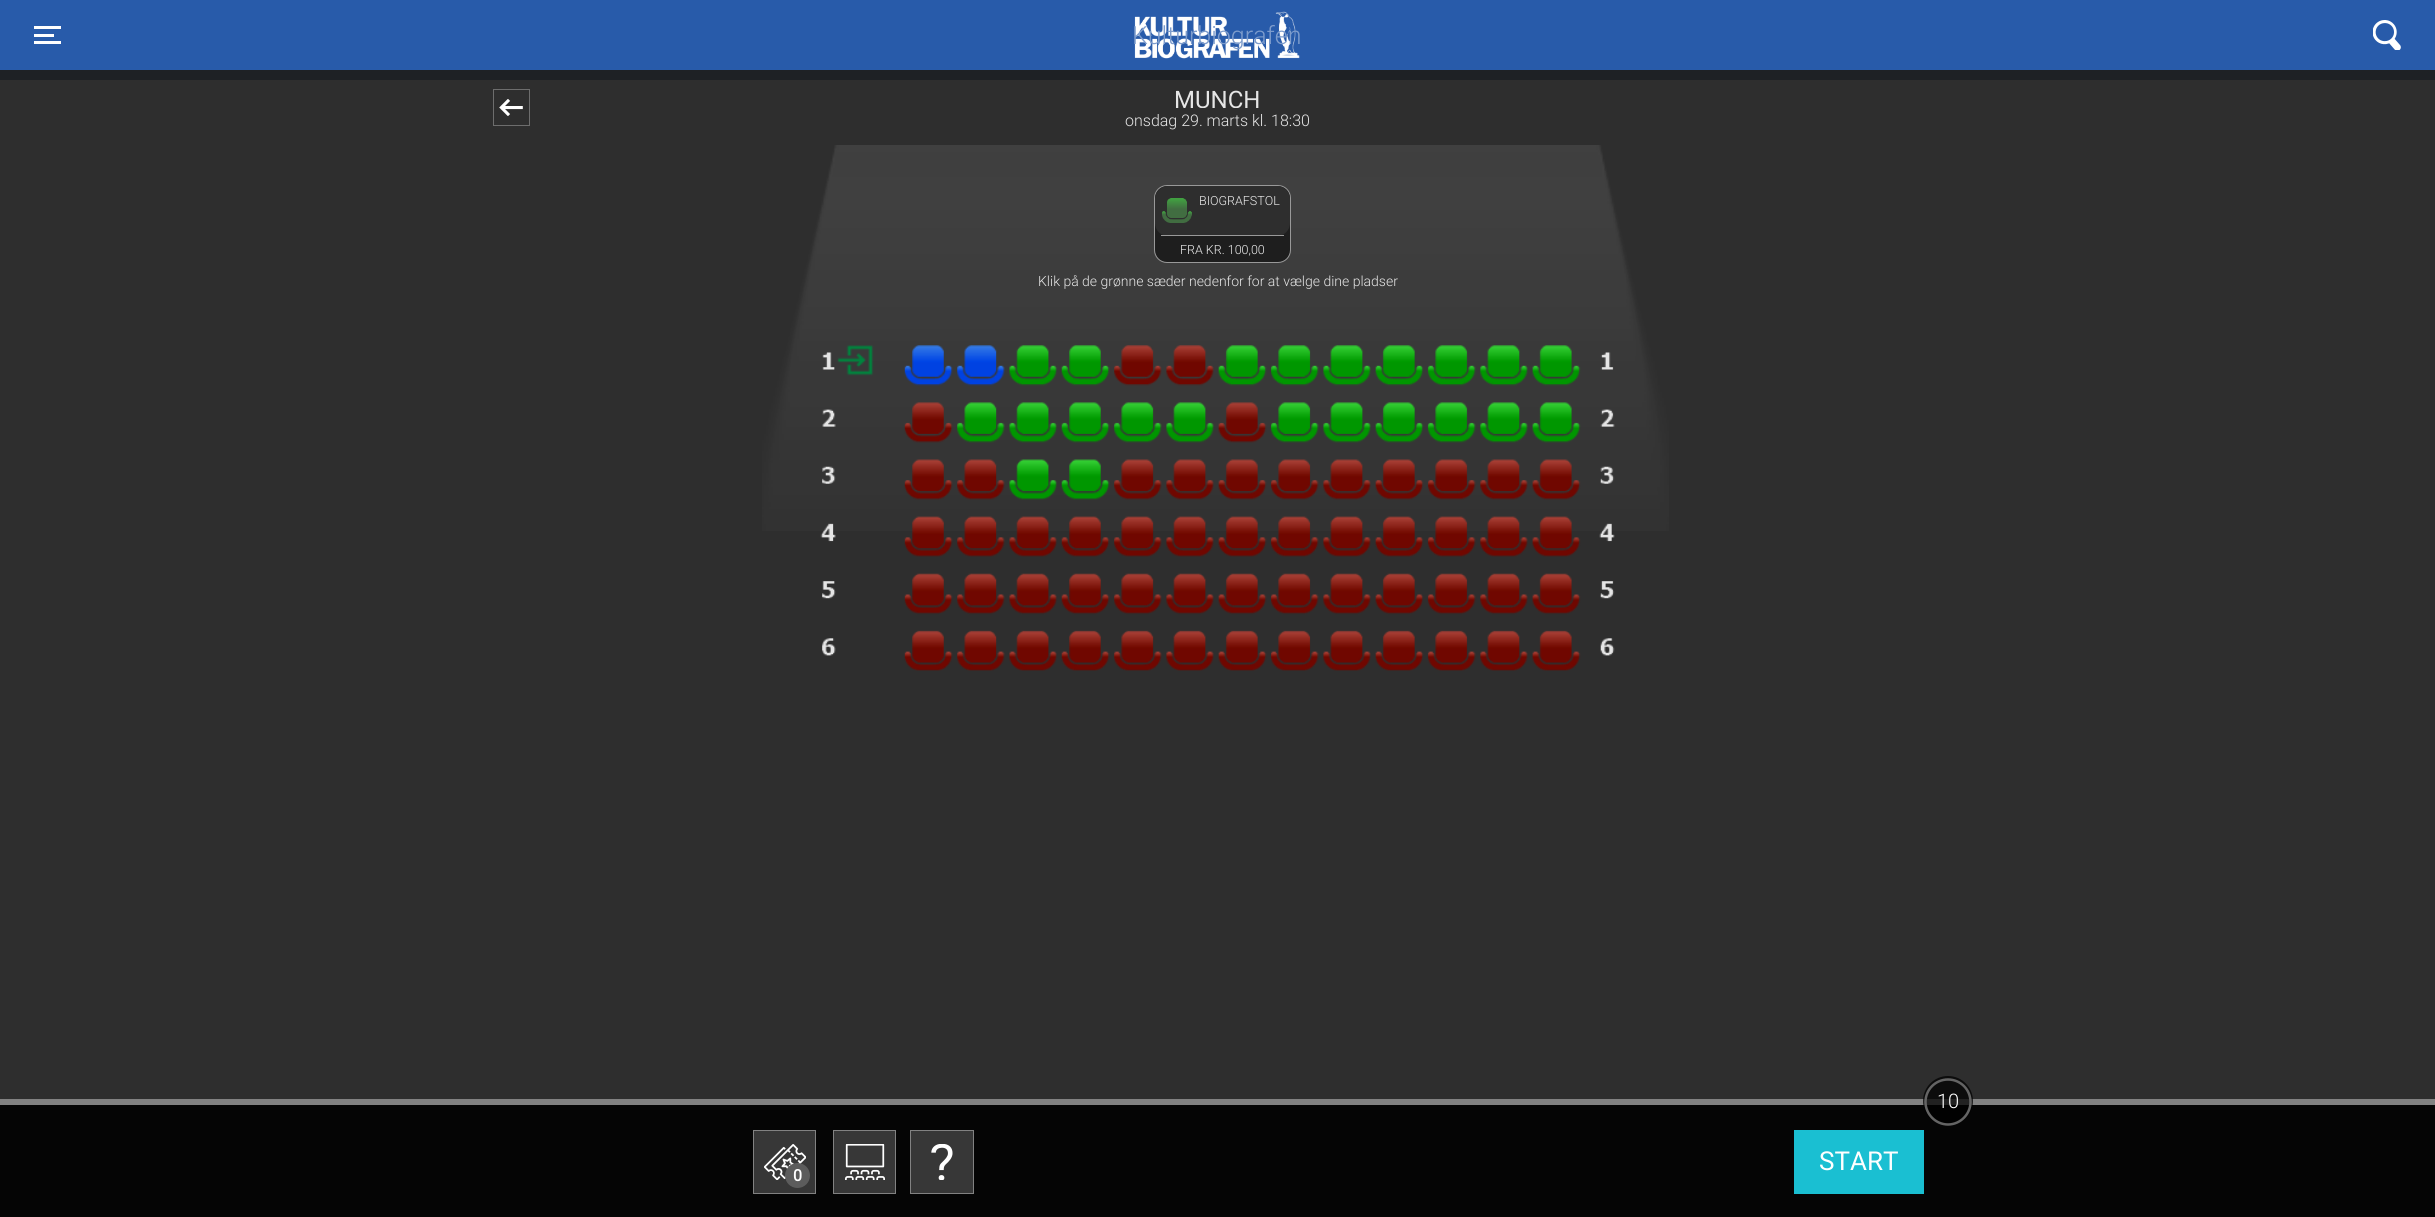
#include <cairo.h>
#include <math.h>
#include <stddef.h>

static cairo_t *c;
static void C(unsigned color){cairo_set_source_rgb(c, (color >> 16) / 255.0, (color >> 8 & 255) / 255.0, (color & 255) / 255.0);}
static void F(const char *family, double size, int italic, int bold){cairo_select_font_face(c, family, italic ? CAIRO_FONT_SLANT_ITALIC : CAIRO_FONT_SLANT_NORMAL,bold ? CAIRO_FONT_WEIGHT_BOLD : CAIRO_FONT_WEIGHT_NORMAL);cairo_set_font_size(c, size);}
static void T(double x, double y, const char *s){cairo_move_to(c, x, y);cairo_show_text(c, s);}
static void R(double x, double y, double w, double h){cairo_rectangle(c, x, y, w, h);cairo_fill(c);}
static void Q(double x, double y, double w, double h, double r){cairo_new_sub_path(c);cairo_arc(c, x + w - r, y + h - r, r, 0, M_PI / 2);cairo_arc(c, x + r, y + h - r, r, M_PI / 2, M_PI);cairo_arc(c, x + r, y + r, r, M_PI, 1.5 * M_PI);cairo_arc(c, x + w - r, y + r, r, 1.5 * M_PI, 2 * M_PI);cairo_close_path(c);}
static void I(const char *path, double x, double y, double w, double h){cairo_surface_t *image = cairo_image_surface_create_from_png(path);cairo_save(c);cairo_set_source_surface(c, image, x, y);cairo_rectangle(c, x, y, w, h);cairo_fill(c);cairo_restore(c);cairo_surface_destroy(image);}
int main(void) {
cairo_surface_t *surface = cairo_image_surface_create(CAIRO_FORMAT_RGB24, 2435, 1217);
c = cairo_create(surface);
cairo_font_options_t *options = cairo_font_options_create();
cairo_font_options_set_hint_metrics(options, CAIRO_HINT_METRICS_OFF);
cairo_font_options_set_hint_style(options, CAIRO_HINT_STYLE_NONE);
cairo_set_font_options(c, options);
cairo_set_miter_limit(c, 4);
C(0x2e2e2e);
cairo_paint(c);
C(0x285baa);
R(0,0,2435,70);
C(0xffffff);
R(34,26,27,3);
R(34,34,20,3);
R(34,41,27,3);
I("1.png",1134,11,166,48);
F("Roboto Light",25,0,0);
C(0x7d9ccc);
T(1132,44,"Kulturbiografen");
I("2.png",2373,20,28,30);
I("3.png",499,99,24,17);
cairo_rectangle(c,493.5,89.5,36,36);
C(0x6d6d6d);
cairo_set_line_width(c,1);
cairo_stroke(c);
cairo_save(c);
cairo_rectangle(c,761,89,913,19);
cairo_clip(c);
F("Roboto",24,0,0);
C(0xe6e6e6);
T(1174,108,"MUNCH");
cairo_restore(c);
F("Roboto Light",16,0,0);
C(0xe6e6e6);
T(1125,126,"onsdag 29. marts kl. 18:30");
I("4.png",762,145,907,386);
C(0x1e1e1e);
Q(1154.5,185.5,136,77,12.5);
cairo_fill_preserve(c);
C(0x999999);
cairo_stroke(c);
C(0x2e2e2e);
Q(1155,186,135,50,13);
cairo_fill(c);
C(0x999999);
R(1161,235,123,1);
I("5.png",1162,198,30,25);
F("Roboto Light",12.5,0,0);
C(0xeeeeee);
T(1199,205,"BIOGRAFSTOL");
T(1180,254,"FRA KR. 100,00");
F("Roboto Light",14,0,0);
C(0xe6e6e6);
T(1038,286,"Klik på de grønne sæder nedenfor for at vælge dine pladser");
I("6.png",820,345,795,326);
C(0x050505);
R(0,1105,2435,112);
C(0x828282);
R(0,1099,2435,6);
C(0x1abfd2);
R(1794,1130,130,64);
F("Roboto",26,0,0);
C(0xffffff);
T(1819,1170,"START");
C(0x373737);
R(754,1131,61,62);
I("7.png",764,1144,42,36);
cairo_rectangle(c,753.5,1130.5,62,63);
C(0x828282);
cairo_stroke(c);
C(0x5c5c5c);
cairo_arc(c,797.5,1175.5,12.5,0,2 * M_PI);
cairo_fill(c);
F("Roboto",16,0,1);
C(0xffffff);
T(793,1181,"0");
C(0x373737);
R(834,1131,61,62);
I("8.png",845,1144,40,36);
cairo_rectangle(c,833.5,1130.5,62,63);
C(0x828282);
cairo_stroke(c);
C(0x373737);
R(911,1131,62,62);
I("9.png",931,1144,22,36);
cairo_rectangle(c,910.5,1130.5,63,63);
C(0x828282);
cairo_stroke(c);
cairo_set_source_rgba(c,0,0,0,0.75);
cairo_arc(c,1948,1101,25,0,2 * M_PI);
cairo_fill(c);
F("Roboto Light",20,0,0);
C(0xffffff);
T(1937,1108,"10");
cairo_new_path(c);
cairo_move_to(c,1970.5,1102);
cairo_curve_to(c,1970.5,1089.5,1960.5,1079.5,1948,1079.5);
cairo_curve_to(c,1935.5,1079.5,1925.5,1089.5,1925.5,1102);
cairo_curve_to(c,1925.5,1114,1935.5,1124.5,1948,1124.5);
cairo_curve_to(c,1960.5,1124.5,1970.5,1114,1970.5,1102);
C(0x646464);
cairo_set_line_width(c,2.5);
cairo_set_line_cap(c,CAIRO_LINE_CAP_ROUND);
cairo_stroke(c);
C(0x1e2125);
R(0,70,2435,10);
cairo_surface_write_to_png(surface, "o.png");
cairo_font_options_destroy(options);
cairo_destroy(c);
cairo_surface_destroy(surface);
return 0;
}
